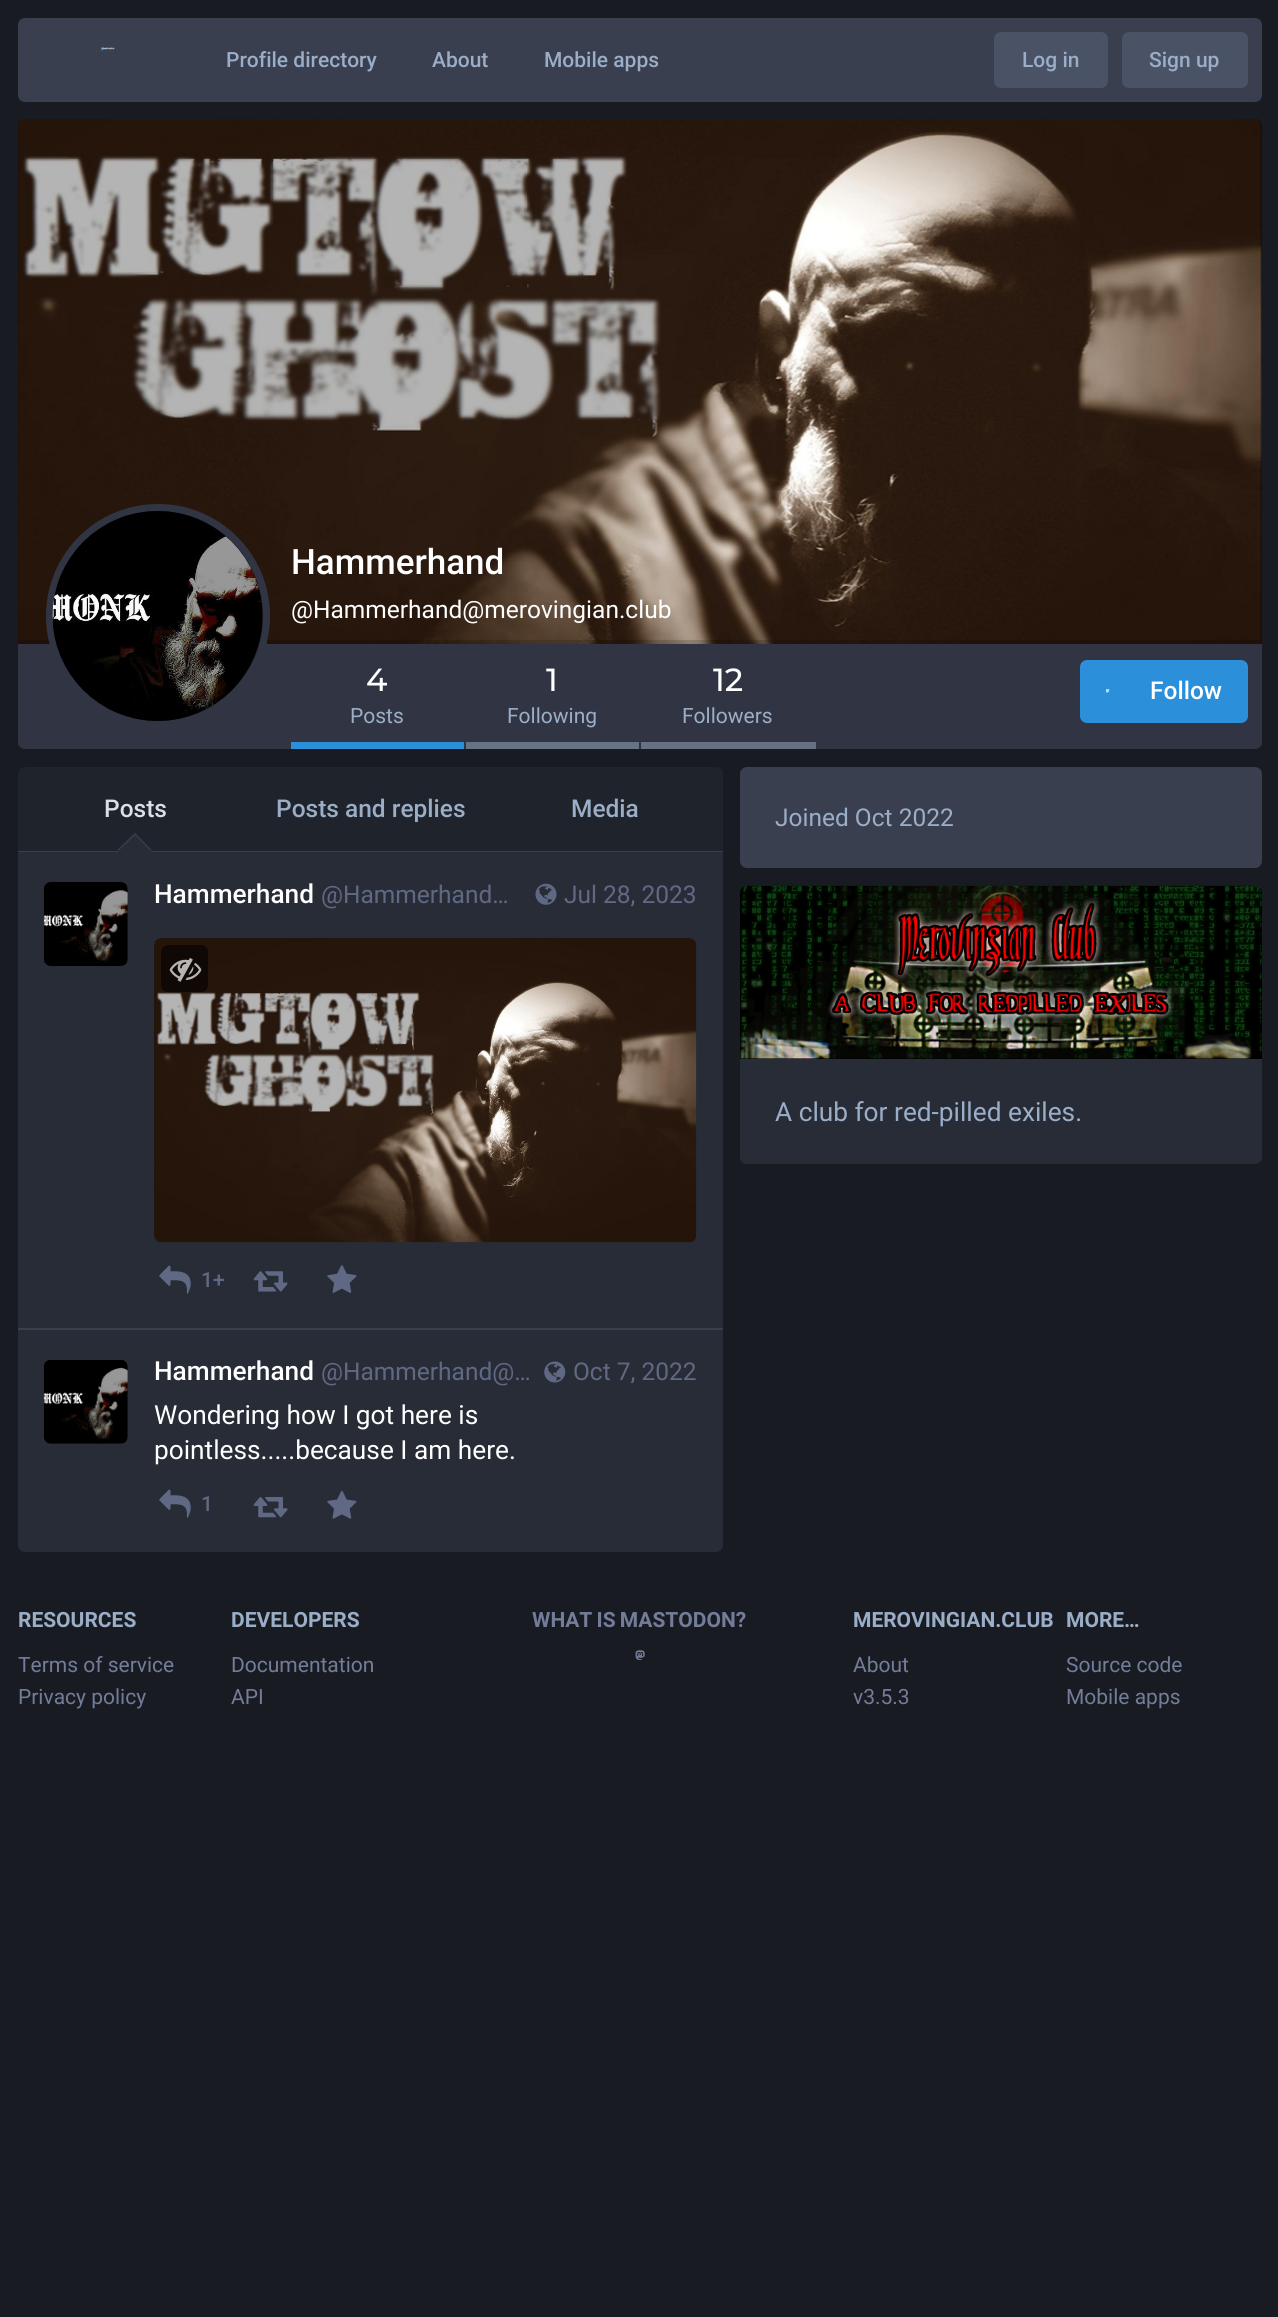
#include <cairo.h>
#include <math.h>
#include <stddef.h>

static cairo_t *c;
static void C(unsigned color){cairo_set_source_rgb(c, (color >> 16) / 255.0, (color >> 8 & 255) / 255.0, (color & 255) / 255.0);}
static void F(const char *family, double size, int italic, int bold){cairo_select_font_face(c, family, italic ? CAIRO_FONT_SLANT_ITALIC : CAIRO_FONT_SLANT_NORMAL,bold ? CAIRO_FONT_WEIGHT_BOLD : CAIRO_FONT_WEIGHT_NORMAL);cairo_set_font_size(c, size);}
static void T(double x, double y, const char *s){cairo_move_to(c, x, y);cairo_show_text(c, s);}
static void L(double x, double y, const char *s, double letter, double word){cairo_move_to(c, x, y);while (*s) {char ch[5] = {0};int n = 0;do ch[n++] = *s++; while ((*s & 0xC0) == 0x80);cairo_show_text(c, ch);cairo_rel_move_to(c, letter + word * (*ch == ' '), 0);}}
static void R(double x, double y, double w, double h){cairo_rectangle(c, x, y, w, h);cairo_fill(c);}
static void Q(double x, double y, double w, double h, double r){cairo_new_sub_path(c);cairo_arc(c, x + w - r, y + h - r, r, 0, M_PI / 2);cairo_arc(c, x + r, y + h - r, r, M_PI / 2, M_PI);cairo_arc(c, x + r, y + r, r, M_PI, 1.5 * M_PI);cairo_arc(c, x + w - r, y + r, r, 1.5 * M_PI, 2 * M_PI);cairo_close_path(c);}
static void I(const char *path, double x, double y, double w, double h){cairo_surface_t *image = cairo_image_surface_create_from_png(path);cairo_save(c);cairo_set_source_surface(c, image, x, y);cairo_rectangle(c, x, y, w, h);cairo_fill(c);cairo_restore(c);cairo_surface_destroy(image);}
int main(void) {
cairo_surface_t *surface = cairo_image_surface_create(CAIRO_FORMAT_RGB24, 1278, 2317);
c = cairo_create(surface);
cairo_font_options_t *options = cairo_font_options_create();
cairo_font_options_set_hint_metrics(options, CAIRO_HINT_METRICS_OFF);
cairo_font_options_set_hint_style(options, CAIRO_HINT_STYLE_NONE);
cairo_set_font_options(c, options);
cairo_set_miter_limit(c, 4);
C(0x191b22);
cairo_paint(c);
C(0x393f4f);
Q(18,18,1244,84,7);
cairo_fill(c);
I("1.png",101,47,14,4);
F("Roboto Medium",21,0,0);
C(0x9baec8);
T(226,67,"Profile directory");
T(432,67,"About");
T(544,67,"Mobile apps");
C(0x4a5266);
Q(994,32,114,56,7);
cairo_fill(c);
C(0x9baec8);
T(1022,67,"Log in");
C(0x4a5266);
Q(1122,32,126,56,7);
cairo_fill(c);
C(0x9baec8);
T(1149,67,"Sign up");
C(0x0e1014);
cairo_new_path(c);
cairo_move_to(c,25,119);
cairo_line_to(c,1255,119);
cairo_curve_to(c,1259,119,1262,122,1262,126);
cairo_line_to(c,1262,644);
cairo_line_to(c,18,644);
cairo_line_to(c,18,126);
cairo_curve_to(c,18,122,21,119,25,119);
cairo_close_path(c);
cairo_fill(c);
I("2.png",18,119,1244,525);
cairo_set_source_rgba(c,0,0,0,0.15);
cairo_new_path(c);
cairo_move_to(c,1260,121);
cairo_line_to(c,1260,640);
cairo_line_to(c,19,640);
cairo_line_to(c,19,122);
cairo_line_to(c,18,126);
cairo_line_to(c,18,644);
cairo_line_to(c,1262,644);
cairo_line_to(c,1262,126);
cairo_curve_to(c,1262,124,1261,122,1260,121);
cairo_close_path(c);
cairo_fill(c);
C(0x313543);
cairo_new_path(c);
cairo_move_to(c,18,644);
cairo_line_to(c,1262,644);
cairo_line_to(c,1262,742);
cairo_curve_to(c,1262,746,1259,749,1255,749);
cairo_line_to(c,25,749);
cairo_curve_to(c,21,749,18,746,18,742);
cairo_close_path(c);
cairo_fill(c);
C(0x17191f);
cairo_arc(c,158,616,108.5,0,2 * M_PI);
cairo_fill_preserve(c);
C(0x313543);
cairo_set_line_width(c,7);
cairo_stroke(c);
I("3.png",52,511,211,210);
F("Roboto Medium",35,0,0);
C(0xffffff);
T(291,574,"Hammerhand");
F("Roboto",24.5,0,0);
T(291,618,"@Hammerhand@merovingian.club");
F("Montserrat Medium",32,0,0);
T(366,691,"4");
F("Roboto",21,0,0);
C(0x9baec8);
T(350,723,"Posts");
C(0x2b90d9);
R(291,742,173,7);
F("Montserrat Medium",32,0,0);
C(0xffffff);
T(546,691,"1");
F("Roboto",21,0,0);
C(0x9baec8);
T(507,723,"Following");
C(0x667286);
R(466,742,173,7);
F("Montserrat Medium",32,0,0);
C(0xffffff);
T(713,691,"12");
F("Roboto",21,0,0);
C(0x9baec8);
T(682,723,"Followers");
C(0x667185);
R(641,742,175,7);
C(0x2b90d9);
Q(1080,660,168,63,7);
cairo_fill(c);
I("4.png",1106,689,4,4);
F("Roboto Medium",24.5,0,0);
C(0xffffff);
T(1150,699,"Follow");
C(0x1f232b);
cairo_new_path(c);
cairo_move_to(c,25,767);
cairo_line_to(c,716,767);
cairo_curve_to(c,720,767,723,770,723,774);
cairo_line_to(c,723,852);
cairo_line_to(c,18,852);
cairo_line_to(c,18,774);
cairo_curve_to(c,18,770,21,767,25,767);
cairo_close_path(c);
cairo_fill(c);
C(0x393f4f);
R(18,851,705,1);
C(0xd9e1e8);
T(104,817,"Posts");
C(0x393f4f);
cairo_new_path(c);
cairo_move_to(c,152,850.5);
cairo_line_to(c,117,850.5);
cairo_line_to(c,135,833);
cairo_close_path(c);
cairo_fill(c);
C(0x282c37);
cairo_new_path(c);
cairo_move_to(c,152,852);
cairo_line_to(c,117,852);
cairo_line_to(c,135,835);
cairo_close_path(c);
cairo_fill(c);
C(0x9baec8);
T(276,817,"Posts and replies");
T(571,817,"Media");
C(0x282c37);
R(18,852,705,476);
C(0x393f4f);
R(18,1328,705,2);
I("5.png",43,882,85,84);
F("Roboto Medium",26.25,0,0);
C(0xffffff);
T(154,903,"Hammerhand");
F("Roboto",24.5,0,0);
C(0x606984);
T(321,903,"@Hammerhand…");
I("6.png",535,883,22,22);
T(564,903,"Jul 28, 2023");
I("7.png",154,938,543,305);
cairo_set_source_rgba(c,0,0,0,0.6);
Q(161,945,47,47,7);
cairo_fill(c);
I("8.png",169,958,33,24);
I("9.png",159,1265,32,29);
F("Roboto Medium",21,0,0);
C(0x606984);
T(201,1287,"1+");
I("10.png",253,1271,35,21);
I("11.png",327,1265,30,28);
C(0x282c37);
cairo_new_path(c);
cairo_move_to(c,18,1330);
cairo_line_to(c,723,1330);
cairo_line_to(c,723,1545);
cairo_curve_to(c,723,1549,720,1552,716,1552);
cairo_line_to(c,25,1552);
cairo_curve_to(c,21,1552,18,1549,18,1545);
cairo_close_path(c);
cairo_fill(c);
I("12.png",43,1360,85,84);
F("Roboto Medium",26.25,0,0);
C(0xffffff);
T(154,1380,"Hammerhand");
F("Roboto",24.5,0,0);
C(0x606984);
T(321,1380,"@Hammerhand@…");
I("13.png",544,1361,22,22);
T(573,1380,"Oct 7, 2022");
F("Roboto",26.25,0,0);
C(0xffffff);
T(154,1424,"Wondering how I got here is");
T(154,1459,"pointless.....because I am here.");
I("9.png",159,1489,32,29);
F("Roboto Medium",21,0,0);
C(0x606984);
T(201,1511,"1");
I("14.png",253,1497,35,21);
I("15.png",327,1490,30,29);
C(0x393f4f);
Q(740,767,522,101,7);
cairo_fill(c);
F("Roboto",24.5,0,0);
C(0x9baec8);
T(775,826,"Joined Oct 2022");
C(0x000000);
cairo_new_path(c);
cairo_move_to(c,747,886);
cairo_line_to(c,1255,886);
cairo_curve_to(c,1259,886,1262,889,1262,893);
cairo_line_to(c,1262,1059);
cairo_line_to(c,740,1059);
cairo_line_to(c,740,893);
cairo_curve_to(c,740,889,743,886,747,886);
cairo_close_path(c);
cairo_fill(c);
I("16.png",740,885,522,174);
C(0x282c37);
cairo_new_path(c);
cairo_move_to(c,740,1059);
cairo_line_to(c,1262,1059);
cairo_line_to(c,1262,1157);
cairo_curve_to(c,1262,1161,1259,1164,1255,1164);
cairo_line_to(c,747,1164);
cairo_curve_to(c,743,1164,740,1161,740,1157);
cairo_close_path(c);
cairo_fill(c);
F("Roboto",26.25,0,0);
C(0x9baec8);
T(775,1121,"A club for red-pilled exiles.");
F("Roboto",21,0,1);
T(18,1627,"RESOURCES");
F("Roboto",21,0,0);
C(0x737d99);
T(18,1672,"Terms of service");
T(18,1704,"Privacy policy");
F("Roboto",21,0,1);
C(0x9baec8);
T(231,1627,"DEVELOPERS");
F("Roboto",21,0,0);
C(0x737d99);
T(231,1672,"Documentation");
T(231,1704,"API");
F("Roboto",21,0,1);
L(532,1627,"WHAT IS MASTODON?",0,-1);
I("17.png",635,1650,10,10);
C(0x9baec8);
T(853,1627,"MEROVINGIAN.CLUB");
F("Roboto",21,0,0);
C(0x737d99);
T(853,1672,"About");
T(853,1704,"v3.5.3");
F("Roboto",21,0,1);
C(0x9baec8);
T(1066,1627,"MORE…");
F("Roboto",21,0,0);
C(0x737d99);
T(1066,1672,"Source code");
T(1066,1704,"Mobile apps");
cairo_surface_write_to_png(surface, "o.png");
cairo_font_options_destroy(options);
cairo_destroy(c);
cairo_surface_destroy(surface);
return 0;
}
